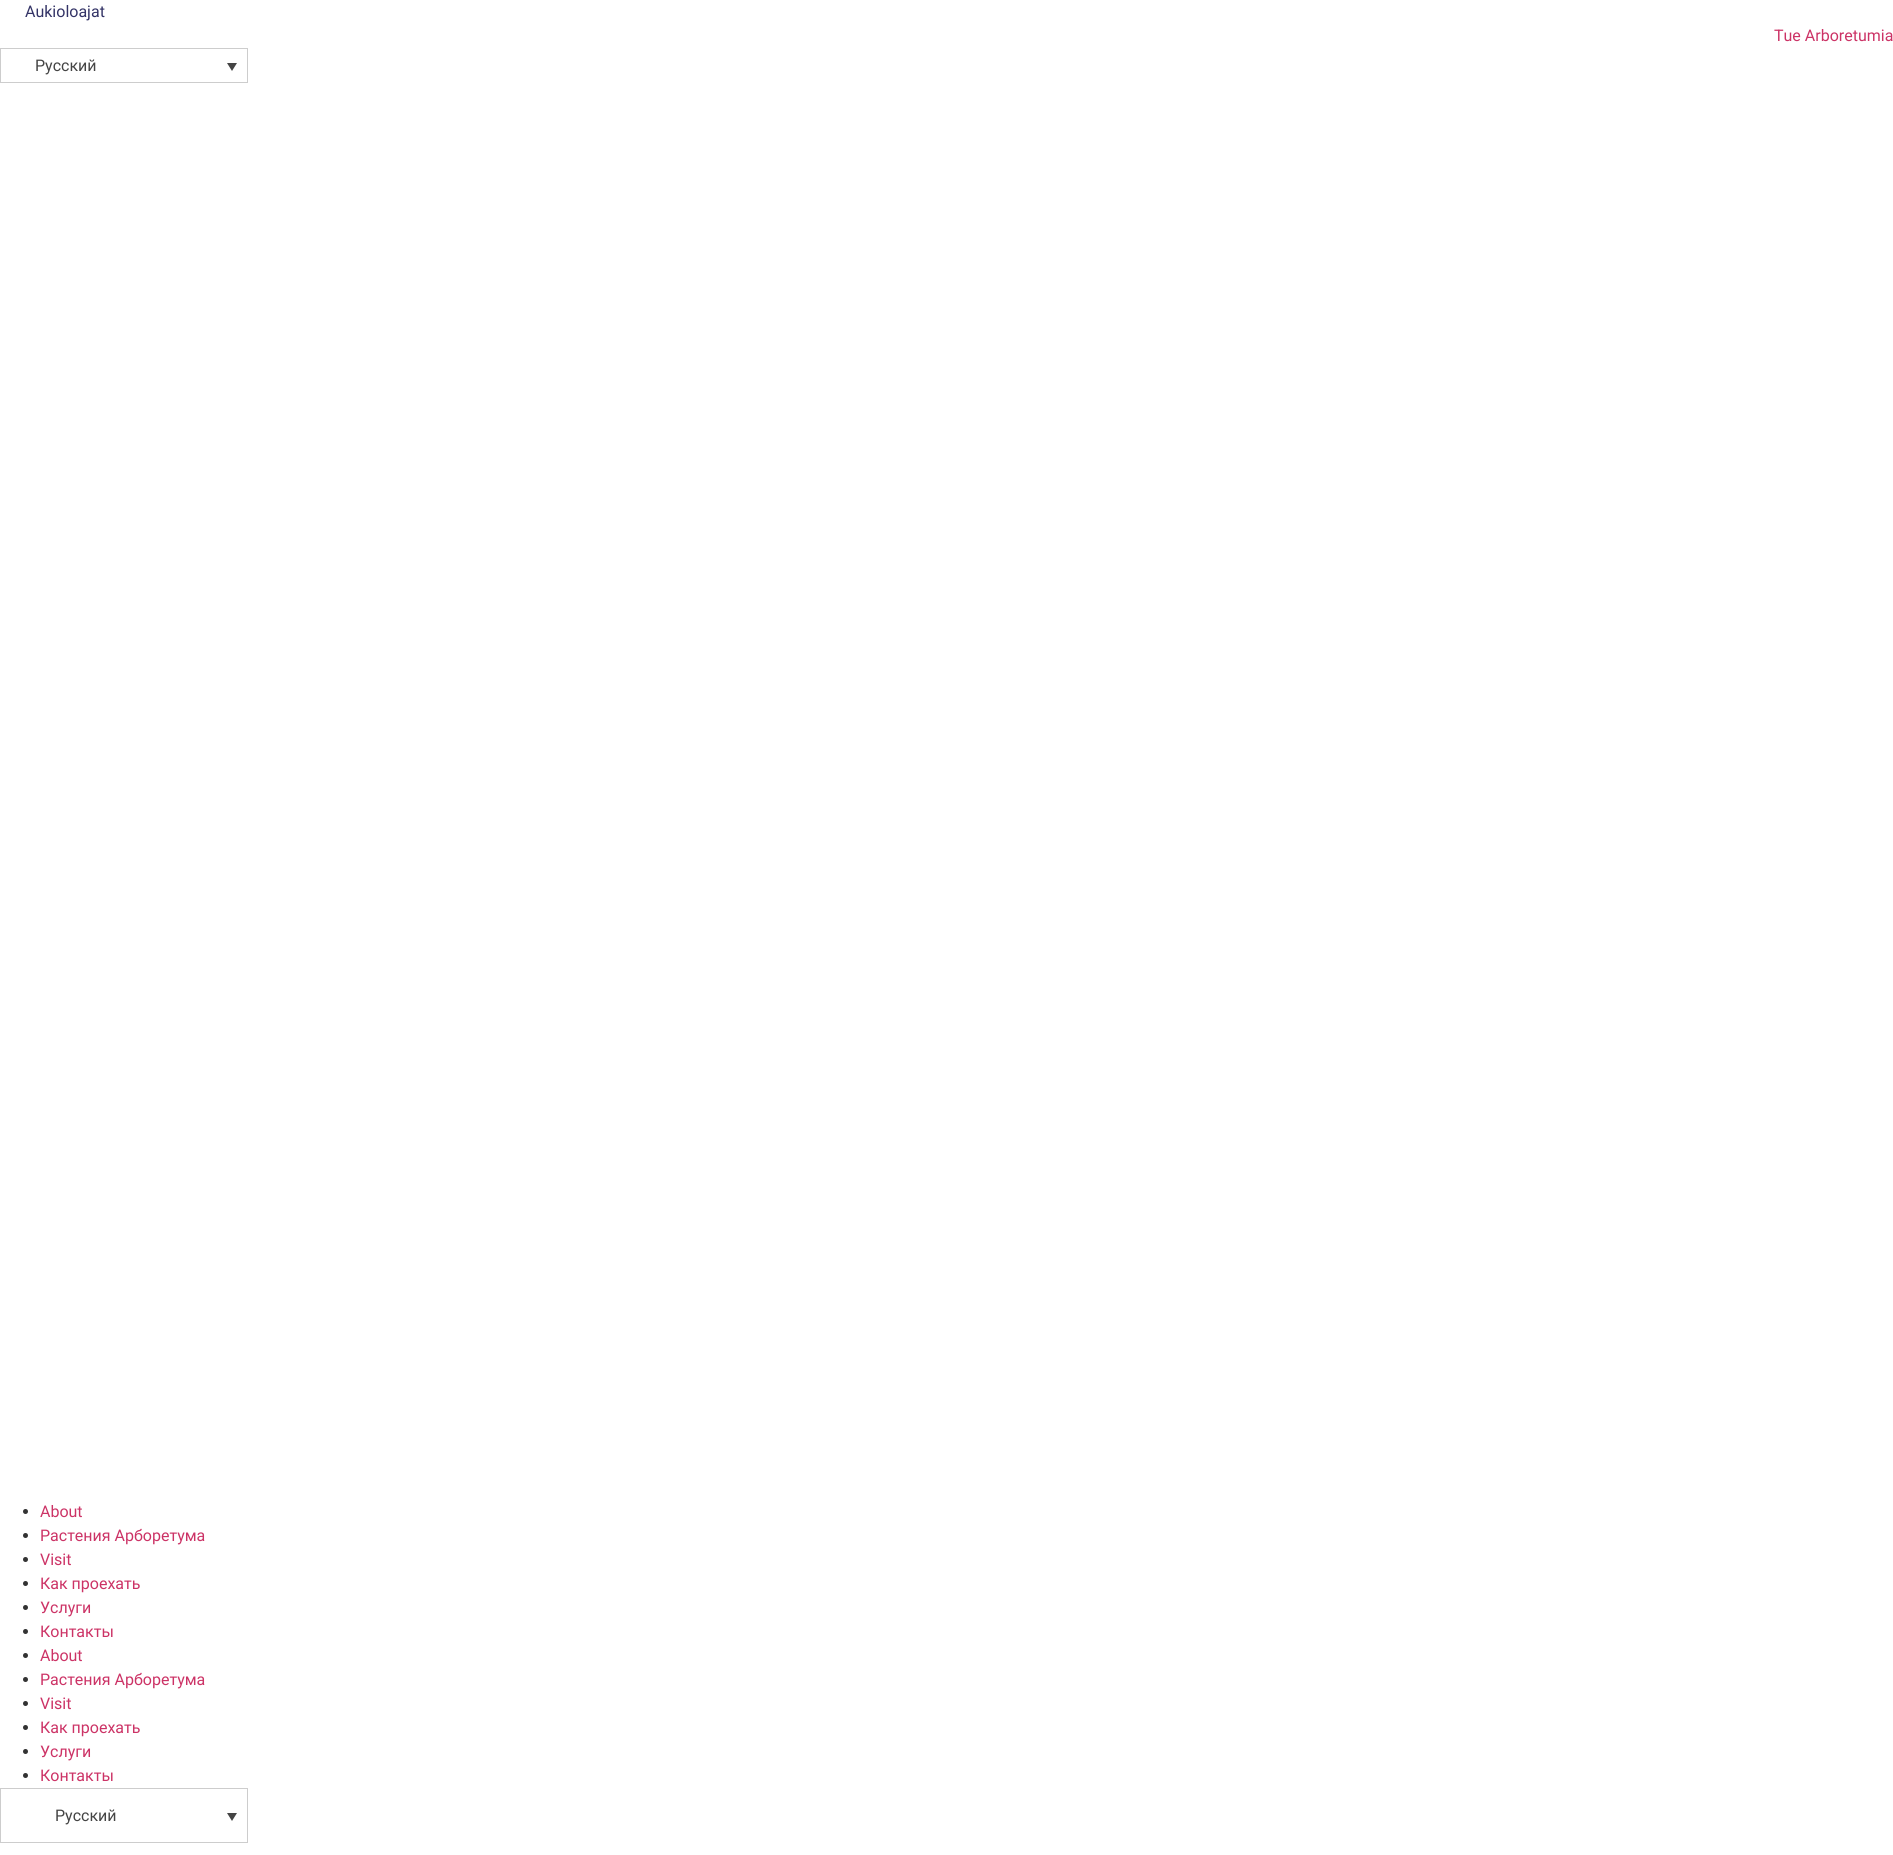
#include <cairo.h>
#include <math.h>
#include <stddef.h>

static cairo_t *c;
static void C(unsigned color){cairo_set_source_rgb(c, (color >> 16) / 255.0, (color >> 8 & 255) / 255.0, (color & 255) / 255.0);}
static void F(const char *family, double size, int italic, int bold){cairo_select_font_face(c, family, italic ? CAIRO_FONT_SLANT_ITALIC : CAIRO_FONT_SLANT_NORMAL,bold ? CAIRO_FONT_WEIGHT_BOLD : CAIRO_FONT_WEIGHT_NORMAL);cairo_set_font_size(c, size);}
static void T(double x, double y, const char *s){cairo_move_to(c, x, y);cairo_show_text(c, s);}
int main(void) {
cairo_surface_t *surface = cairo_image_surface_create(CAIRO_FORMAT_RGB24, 1893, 1855);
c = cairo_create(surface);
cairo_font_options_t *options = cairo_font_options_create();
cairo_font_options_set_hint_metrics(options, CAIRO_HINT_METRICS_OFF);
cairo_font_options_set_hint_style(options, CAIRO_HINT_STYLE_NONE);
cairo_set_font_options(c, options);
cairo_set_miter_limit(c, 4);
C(0xffffff);
cairo_paint(c);
F("Roboto",16,0,0);
C(0x333366);
T(25,17,"Aukioloajat");
C(0xcc3366);
T(1774,41,"Tue Arboretumia");
cairo_rectangle(c,.5,48.5,247,34);
C(0xcdcdcd);
cairo_set_line_width(c,1);
cairo_stroke(c);
C(0x444444);
T(35,71,"Русский");
cairo_new_path(c);
cairo_move_to(c,227,63);
cairo_line_to(c,237,63);
cairo_line_to(c,232,71);
cairo_close_path(c);
cairo_fill(c);
C(0x333333);
cairo_arc(c,25.5,1511.5,2.5,0,2 * M_PI);
cairo_fill(c);
C(0xcc3366);
T(40,1517,"About");
C(0x333333);
cairo_new_path(c);
cairo_arc(c,25.5,1535.5,2.5,0,2 * M_PI);
cairo_fill(c);
C(0xcc3366);
T(40,1541,"Растения Арборетума");
C(0x333333);
cairo_new_path(c);
cairo_arc(c,25.5,1559.5,2.5,0,2 * M_PI);
cairo_fill(c);
C(0xcc3366);
T(40,1565,"Visit");
C(0x333333);
cairo_new_path(c);
cairo_arc(c,25.5,1583.5,2.5,0,2 * M_PI);
cairo_fill(c);
C(0xcc3366);
T(40,1589,"Как проехать");
C(0x333333);
cairo_new_path(c);
cairo_arc(c,25.5,1607.5,2.5,0,2 * M_PI);
cairo_fill(c);
C(0xcc3366);
T(40,1613,"Услуги");
C(0x333333);
cairo_new_path(c);
cairo_arc(c,25.5,1631.5,2.5,0,2 * M_PI);
cairo_fill(c);
C(0xcc3366);
T(40,1637,"Контакты");
C(0x333333);
cairo_new_path(c);
cairo_arc(c,25.5,1655.5,2.5,0,2 * M_PI);
cairo_fill(c);
C(0xcc3366);
T(40,1661,"About");
C(0x333333);
cairo_new_path(c);
cairo_arc(c,25.5,1679.5,2.5,0,2 * M_PI);
cairo_fill(c);
C(0xcc3366);
T(40,1685,"Растения Арборетума");
C(0x333333);
cairo_new_path(c);
cairo_arc(c,25.5,1703.5,2.5,0,2 * M_PI);
cairo_fill(c);
C(0xcc3366);
T(40,1709,"Visit");
C(0x333333);
cairo_new_path(c);
cairo_arc(c,25.5,1727.5,2.5,0,2 * M_PI);
cairo_fill(c);
C(0xcc3366);
T(40,1733,"Как проехать");
C(0x333333);
cairo_new_path(c);
cairo_arc(c,25.5,1751.5,2.5,0,2 * M_PI);
cairo_fill(c);
C(0xcc3366);
T(40,1757,"Услуги");
C(0x333333);
cairo_new_path(c);
cairo_arc(c,25.5,1775.5,2.5,0,2 * M_PI);
cairo_fill(c);
C(0xcc3366);
T(40,1781,"Контакты");
cairo_rectangle(c,.5,1788.5,247,54);
C(0xcdcdcd);
cairo_stroke(c);
C(0x444444);
T(55,1821,"Русский");
cairo_new_path(c);
cairo_move_to(c,227,1813);
cairo_line_to(c,237,1813);
cairo_line_to(c,232,1821);
cairo_close_path(c);
cairo_fill(c);
cairo_surface_write_to_png(surface, "o.png");
cairo_font_options_destroy(options);
cairo_destroy(c);
cairo_surface_destroy(surface);
return 0;
}
